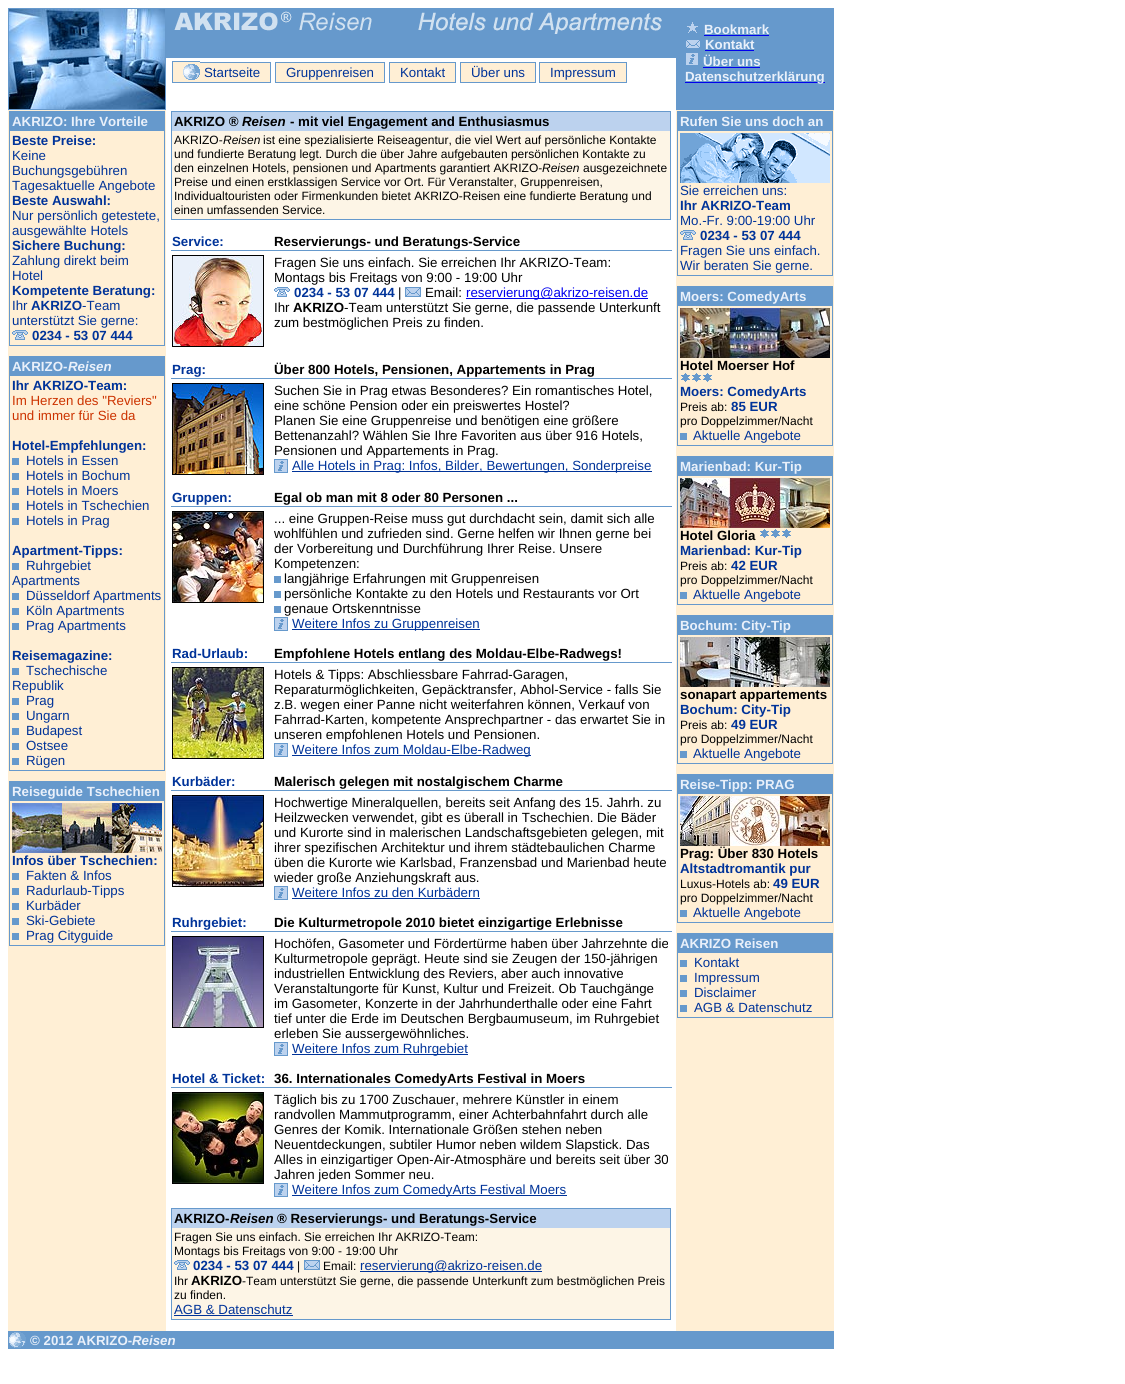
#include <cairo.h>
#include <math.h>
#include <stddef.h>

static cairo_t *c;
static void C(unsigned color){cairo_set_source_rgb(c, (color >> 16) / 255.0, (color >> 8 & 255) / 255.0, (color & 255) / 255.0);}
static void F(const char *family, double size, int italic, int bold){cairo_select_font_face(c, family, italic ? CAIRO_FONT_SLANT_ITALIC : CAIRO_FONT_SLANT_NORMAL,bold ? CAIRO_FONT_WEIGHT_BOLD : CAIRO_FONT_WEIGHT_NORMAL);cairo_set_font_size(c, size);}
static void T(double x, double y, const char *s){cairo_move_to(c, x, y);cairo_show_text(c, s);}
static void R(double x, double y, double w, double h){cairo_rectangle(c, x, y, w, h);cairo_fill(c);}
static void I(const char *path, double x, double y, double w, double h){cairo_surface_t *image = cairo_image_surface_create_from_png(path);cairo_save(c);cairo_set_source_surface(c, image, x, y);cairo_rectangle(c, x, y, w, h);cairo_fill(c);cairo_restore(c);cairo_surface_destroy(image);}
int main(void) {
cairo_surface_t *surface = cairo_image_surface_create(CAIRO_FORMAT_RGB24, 1125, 1384);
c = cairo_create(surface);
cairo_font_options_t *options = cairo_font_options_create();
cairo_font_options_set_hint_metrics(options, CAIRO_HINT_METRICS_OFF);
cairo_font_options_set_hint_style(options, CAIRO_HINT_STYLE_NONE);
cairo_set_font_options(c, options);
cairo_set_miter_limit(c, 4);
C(0xffffff);
cairo_paint(c);
C(0xffefd5);
R(173,62,27,20);
I("1.png",183,64,17,16);
R(200,63,70,19);
F("Liberation Sans",13.3,0,0);
C(0x003399);
T(204,77,"Startseite");
C(0x6699cc);
R(172,61,28,1);
R(172,82,28,1);
R(172,61,1,22);
R(200,62,71,1);
R(270,62,1,21);
R(200,82,71,1);
C(0xffefd5);
cairo_rectangle(c,275.5,62.5,109,20);
cairo_fill_preserve(c);
C(0x6699cc);
cairo_set_line_width(c,1);
cairo_stroke(c);
C(0x003399);
T(286,77,"Gruppenreisen");
C(0xffefd5);
cairo_rectangle(c,389.5,62.5,66,20);
cairo_fill_preserve(c);
C(0x6699cc);
cairo_stroke(c);
C(0x003399);
T(400,77,"Kontakt");
C(0xffefd5);
cairo_rectangle(c,460.5,62.5,75,20);
cairo_fill_preserve(c);
C(0x6699cc);
cairo_stroke(c);
C(0x003399);
T(471,77,"Über uns");
C(0xffefd5);
cairo_rectangle(c,539.5,62.5,87,20);
cairo_fill_preserve(c);
C(0x6699cc);
cairo_stroke(c);
C(0x003399);
T(550,77,"Impressum");
C(0x6699cc);
R(8,8,158,102);
I("2.png",9,9,156,100);
R(166,8,510,50);
I("3.png",174,11,488,23);
R(676,8,158,102);
I("4.png",687,22,11,11);
F("Liberation Sans",13.3,0,1);
C(0xe9f0fa);
T(704,34,"Bookmark");
C(0x0000ee);
R(704,35,65,1);
I("5.png",686,40,14,8);
C(0xe9f0fa);
T(705,49,"Kontakt");
C(0x0000ee);
R(705,50,49,1);
I("6.png",686,53,12,12);
C(0xe9f0fa);
T(703,66,"Über uns");
C(0x0000ee);
R(703,67,57,1);
R(685,82,140,1);
C(0xe9f0fa);
T(685,81,"Datenschutzerklärung");
C(0xffefd5);
R(8,110,158,1221);
C(0x6699cc);
R(9,111,156,1);
R(164,111,1,235);
R(9,345,156,1);
R(9,111,1,235);
R(10,112,154,19);
C(0xe9f0fa);
T(12,126,"AKRIZO: Ihre Vorteile");
C(0x003399);
T(12,145,"Beste Preise:");
F("Liberation Sans",13.3,0,0);
T(12,160,"Keine");
T(12,175,"Buchungsgebühren");
T(12,190,"Tagesaktuelle Angebote");
F("Liberation Sans",13.3,0,1);
T(12,205,"Beste Auswahl:");
F("Liberation Sans",13.3,0,0);
T(12,220,"Nur persönlich getestete,");
T(12,235,"ausgewählte Hotels");
F("Liberation Sans",13.3,0,1);
T(12,250,"Sichere Buchung:");
F("Liberation Sans",13.3,0,0);
T(12,265,"Zahlung direkt beim");
T(12,280,"Hotel");
F("Liberation Sans",13.3,0,1);
T(12,295,"Kompetente Beratung:");
F("Liberation Sans",13.3,0,0);
T(12,310,"Ihr");
F("Liberation Sans",13.3,0,1);
T(31,310,"AKRIZO");
F("Liberation Sans",13.3,0,0);
T(82,310,"-Team");
T(12,325,"unterstützt Sie gerne:");
I("7.png",12,330,16,10);
F("Liberation Sans",13.3,0,1);
T(32,340,"0234 - 53 07 444");
C(0x6699cc);
R(9,356,156,1);
R(164,356,1,415);
R(9,770,156,1);
R(9,356,1,415);
R(10,357,154,19);
C(0xe9f0fa);
T(12,371,"AKRIZO-");
F("Liberation Sans",13.3,1,1);
T(68,371,"Reisen");
F("Liberation Sans",13.3,0,1);
C(0x003399);
T(12,390,"Ihr AKRIZO-Team:");
F("Liberation Sans",13.3,0,0);
C(0xcc3300);
T(12,405,"Im Herzen des \"Reviers\"");
T(12,420,"und immer für Sie da");
F("Liberation Sans",13.3,0,1);
C(0x003399);
T(12,450,"Hotel-Empfehlungen:");
C(0x6699cc);
R(12,458,7,7);
F("Liberation Sans",13.3,0,0);
C(0x003399);
T(26,465,"Hotels in Essen");
C(0x6699cc);
R(12,473,7,7);
C(0x003399);
T(26,480,"Hotels in Bochum");
C(0x6699cc);
R(12,488,7,7);
C(0x003399);
T(26,495,"Hotels in Moers");
C(0x6699cc);
R(12,503,7,7);
C(0x003399);
T(26,510,"Hotels in Tschechien");
C(0x6699cc);
R(12,518,7,7);
C(0x003399);
T(26,525,"Hotels in Prag");
F("Liberation Sans",13.3,0,1);
T(12,555,"Apartment-Tipps:");
C(0x6699cc);
R(12,563,7,7);
F("Liberation Sans",13.3,0,0);
C(0x003399);
T(26,570,"Ruhrgebiet");
T(12,585,"Apartments");
C(0x6699cc);
R(12,593,7,7);
C(0x003399);
T(26,600,"Düsseldorf Apartments");
C(0x6699cc);
R(12,608,7,7);
C(0x003399);
T(26,615,"Köln Apartments");
C(0x6699cc);
R(12,623,7,7);
C(0x003399);
T(26,630,"Prag Apartments");
F("Liberation Sans",13.3,0,1);
T(12,660,"Reisemagazine:");
C(0x6699cc);
R(12,668,7,7);
F("Liberation Sans",13.3,0,0);
C(0x003399);
T(26,675,"Tschechische");
T(12,690,"Republik");
C(0x6699cc);
R(12,698,7,7);
C(0x003399);
T(26,705,"Prag");
C(0x6699cc);
R(12,713,7,7);
C(0x003399);
T(26,720,"Ungarn");
C(0x6699cc);
R(12,728,7,7);
C(0x003399);
T(26,735,"Budapest");
C(0x6699cc);
R(12,743,7,7);
C(0x003399);
T(26,750,"Ostsee");
C(0x6699cc);
R(12,758,7,7);
C(0x003399);
T(26,765,"Rügen");
C(0x6699cc);
R(9,781,156,1);
R(164,781,1,165);
R(9,945,156,1);
R(9,781,1,165);
R(10,782,154,19);
F("Liberation Sans",13.3,0,1);
C(0xe9f0fa);
T(12,796,"Reiseguide Tschechien");
I("8.png",12,803,150,50);
C(0x003399);
T(12,865,"Infos über Tschechien:");
C(0x6699cc);
R(12,873,7,7);
F("Liberation Sans",13.3,0,0);
C(0x003399);
T(26,880,"Fakten & Infos");
C(0x6699cc);
R(12,888,7,7);
C(0x003399);
T(26,895,"Radurlaub-Tipps");
C(0x6699cc);
R(12,903,7,7);
C(0x003399);
T(26,910,"Kurbäder");
C(0x6699cc);
R(12,918,7,7);
C(0x003399);
T(26,925,"Ski-Gebiete");
C(0x6699cc);
R(12,933,7,7);
C(0x003399);
T(26,940,"Prag Cityguide");
C(0x6699cc);
R(171,111,500,1);
R(670,111,1,109);
R(171,219,500,1);
R(171,111,1,109);
C(0xbcd2ee);
R(172,112,498,19);
F("Liberation Sans",13.3,0,1);
C(0x000000);
T(174,126,"AKRIZO ®");
F("Liberation Sans",13.3,1,1);
T(242,126,"Reisen");
F("Liberation Sans",13.3,0,1);
T(290,126,"- mit viel Engagement and Enthusiasmus");
C(0xfdf5e6);
R(172,131,498,88);
F("Liberation Sans",12,0,0);
C(0x000000);
T(174,144,"AKRIZO-");
F("Liberation Sans",12,1,0);
T(223,144,"Reisen");
F("Liberation Sans",12,0,0);
T(263,144,"ist eine spezialisierte Reiseagentur, die viel Wert auf persönliche Kontakte");
T(174,158,"und fundierte Beratung legt. Durch die über Jahre aufgebauten persönlichen Kontakte zu");
T(174,172,"den einzelnen Hotels, pensionen und Apartments garantiert AKRIZO-");
F("Liberation Sans",12,1,0);
T(542,172,"Reisen");
F("Liberation Sans",12,0,0);
T(583,172,"ausgezeichnete");
T(174,186,"Preise und einen erstklassigen Service vor Ort. Für Veranstalter, Gruppenreisen,");
T(174,200,"Individualtouristen oder Firmenkunden bietet AKRIZO-Reisen eine fundierte Beratung und");
T(174,214,"einen umfassenden Service.");
F("Liberation Sans",13.3,0,1);
C(0x003399);
T(172,246,"Service:");
C(0x6699cc);
R(171,250,501,1);
C(0x000000);
T(274,246,"Reservierungs- und Beratungs-Service");
cairo_rectangle(c,172.5,255.5,91,91);
cairo_stroke(c);
I("9.png",173,256,90,90);
F("Liberation Sans",13.3,0,0);
T(274,267,"Fragen Sie uns einfach. Sie erreichen Ihr AKRIZO-Team:");
T(274,282,"Montags bis Freitags von 9:00 - 19:00 Uhr");
I("10.png",274,287,16,10);
F("Liberation Sans",13.3,0,1);
C(0x003399);
T(294,297,"0234 - 53 07 444");
F("Liberation Sans",13.3,0,0);
C(0x000000);
T(398,297,"|");
I("11.png",405,287,16,10);
T(425,297,"Email:");
C(0x0000ee);
R(466,298,182,1);
T(466,297,"reservierung@akrizo-reisen.de");
C(0x000000);
T(274,312,"Ihr");
F("Liberation Sans",13.3,0,1);
T(293,312,"AKRIZO");
F("Liberation Sans",13.3,0,0);
T(344,312,"-Team unterstützt Sie gerne, die passende Unterkunft");
T(274,327,"zum bestmöglichen Preis zu finden.");
F("Liberation Sans",13.3,0,1);
C(0x003399);
T(172,374,"Prag:");
C(0x6699cc);
R(171,378,501,1);
C(0x000000);
T(274,374,"Über 800 Hotels, Pensionen, Appartements in Prag");
cairo_rectangle(c,172.5,383.5,91,91);
cairo_stroke(c);
I("12.png",173,384,90,90);
F("Liberation Sans",13.3,0,0);
T(274,395,"Suchen Sie in Prag etwas Besonderes? Ein romantisches Hotel,");
T(274,410,"eine schöne Pension oder ein preiswertes Hostel?");
T(274,425,"Planen Sie eine Gruppenreise und benötigen eine größere");
T(274,440,"Bettenanzahl? Wählen Sie Ihre Favoriten aus über 916 Hotels,");
T(274,455,"Pensionen und Appartements in Prag.");
I("13.png",274,459,14,14);
C(0x003399);
R(292,471,360,1);
T(292,470,"Alle Hotels in Prag: Infos, Bilder, Bewertungen, Sonderpreise");
F("Liberation Sans",13.3,0,1);
T(172,502,"Gruppen:");
C(0x6699cc);
R(171,506,501,1);
C(0x000000);
T(274,502,"Egal ob man mit 8 oder 80 Personen ...");
cairo_rectangle(c,172.5,511.5,91,91);
cairo_stroke(c);
I("14.png",173,512,90,90);
F("Liberation Sans",13.3,0,0);
T(274,523,"... eine Gruppen-Reise muss gut durchdacht sein, damit sich alle");
T(274,538,"wohlfühlen und zufrieden sind. Gerne helfen wir Ihnen gerne bei");
T(274,553,"der Vorbereitung und Durchführung Ihrer Reise. Unsere");
T(274,568,"Kompetenzen:");
C(0x6699cc);
R(274,576,7,7);
C(0x000000);
T(284,583,"langjährige Erfahrungen mit Gruppenreisen");
C(0x6699cc);
R(274,591,7,7);
C(0x000000);
T(284,598,"persönliche Kontakte zu den Hotels und Restaurants vor Ort");
C(0x6699cc);
R(274,606,7,7);
C(0x000000);
T(284,613,"genaue Ortskenntnisse");
I("13.png",274,617,14,14);
C(0x003399);
R(292,629,188,1);
T(292,628,"Weitere Infos zu Gruppenreisen");
F("Liberation Sans",13.3,0,1);
T(172,658,"Rad-Urlaub:");
C(0x6699cc);
R(171,662,501,1);
C(0x000000);
T(274,658,"Empfohlene Hotels entlang des Moldau-Elbe-Radwegs!");
cairo_rectangle(c,172.5,667.5,91,91);
cairo_stroke(c);
I("15.png",173,668,90,90);
F("Liberation Sans",13.3,0,0);
T(274,679,"Hotels & Tipps: Abschliessbare Fahrrad-Garagen,");
T(274,694,"Reparaturmöglichkeiten, Gepäcktransfer, Abhol-Service - falls Sie");
T(274,709,"z.B. wegen einer Panne nicht weiterfahren können, Verkauf von");
T(274,724,"Fahrrad-Karten, kompetente Ansprechpartner - das erwartet Sie in");
T(274,739,"unseren empfohlenen Hotels und Pensionen.");
I("13.png",274,743,14,14);
C(0x003399);
R(292,755,239,1);
T(292,754,"Weitere Infos zum Moldau-Elbe-Radweg");
F("Liberation Sans",13.3,0,1);
T(172,786,"Kurbäder:");
C(0x6699cc);
R(171,790,501,1);
C(0x000000);
T(274,786,"Malerisch gelegen mit nostalgischem Charme");
cairo_rectangle(c,172.5,795.5,91,91);
cairo_stroke(c);
I("16.png",173,796,90,90);
F("Liberation Sans",13.3,0,0);
T(274,807,"Hochwertige Mineralquellen, bereits seit Anfang des 15. Jahrh. zu");
T(274,822,"Heilzwecken verwendet, gibt es überall in Tschechien. Die Bäder");
T(274,837,"und Kurorte sind in malerischen Landschaftsgebieten gelegen, mit");
T(274,852,"ihrer spezifischen Architektur und ihrem städtebaulichen Charme");
T(274,867,"üben die Kurorte wie Karlsbad, Franzensbad und Marienbad heute");
T(274,882,"wieder große Anziehungskraft aus.");
I("13.png",274,886,14,14);
C(0x003399);
T(292,897,"Weitere Infos zu den Kurbädern");
R(292,898,188,1);
F("Liberation Sans",13.3,0,1);
T(172,927,"Ruhrgebiet:");
C(0x6699cc);
R(171,931,501,1);
C(0x000000);
T(274,927,"Die Kulturmetropole 2010 bietet einzigartige Erlebnisse");
cairo_rectangle(c,172.5,936.5,91,91);
cairo_stroke(c);
I("17.png",173,937,90,90);
F("Liberation Sans",13.3,0,0);
T(274,948,"Hochöfen, Gasometer und Fördertürme haben über Jahrzehnte die");
T(274,963,"Kulturmetropole geprägt. Heute sind sie Zeugen der 150-jährigen");
T(274,978,"industriellen Entwicklung des Reviers, aber auch innovative");
T(274,993,"Veranstaltungorte für Kunst, Kultur und Freizeit. Ob Tauchgänge");
T(274,1008,"im Gasometer, Konzerte in der Jahrhunderthalle oder eine Fahrt");
T(274,1023,"tief unter die Erde im Deutschen Bergbaumuseum, im Ruhrgebiet");
T(274,1038,"erleben Sie aussergewöhnliches.");
I("13.png",274,1042,14,14);
C(0x003399);
R(292,1054,176,1);
T(292,1053,"Weitere Infos zum Ruhrgebiet");
F("Liberation Sans",13.3,0,1);
T(172,1083,"Hotel & Ticket:");
C(0x6699cc);
R(171,1087,501,1);
C(0x000000);
T(274,1083,"36. Internationales ComedyArts Festival in Moers");
cairo_rectangle(c,172.5,1092.5,91,91);
cairo_stroke(c);
I("18.png",173,1093,90,90);
F("Liberation Sans",13.3,0,0);
T(274,1104,"Täglich bis zu 1700 Zuschauer, mehrere Künstler in einem");
T(274,1119,"randvollen Mammutprogramm, einer Achterbahnfahrt durch alle");
T(274,1134,"Genres der Komik. Internationale Größen stehen neben");
T(274,1149,"Neuentdeckungen, subtiler Humor neben wildem Slapstick. Das");
T(274,1164,"Alles in einzigartiger Open-Air-Atmosphäre und bereits seit über 30");
T(274,1179,"Jahren jeden Sommer neu.");
I("13.png",274,1183,14,14);
C(0x003399);
R(292,1195,275,1);
T(292,1194,"Weitere Infos zum ComedyArts Festival Moers");
C(0x6699cc);
R(171,1208,500,1);
R(670,1208,1,112);
R(171,1319,500,1);
R(171,1208,1,112);
C(0xbcd2ee);
R(172,1209,498,19);
F("Liberation Sans",13.3,0,1);
C(0x000000);
T(174,1223,"AKRIZO-");
F("Liberation Sans",13.3,1,1);
T(230,1223,"Reisen");
F("Liberation Sans",13.3,0,1);
T(277,1223,"® Reservierungs- und Beratungs-Service");
C(0xfdf5e6);
R(172,1228,498,91);
F("Liberation Sans",12,0,0);
C(0x000000);
T(174,1241,"Fragen Sie uns einfach. Sie erreichen Ihr AKRIZO-Team:");
T(174,1255,"Montags bis Freitags von 9:00 - 19:00 Uhr");
I("19.png",174,1260,16,10);
F("Liberation Sans",13.3,0,1);
C(0x003399);
T(193,1270,"0234 - 53 07 444");
F("Liberation Sans",12,0,0);
C(0x000000);
T(297,1270,"|");
I("11.png",304,1260,16,10);
T(323,1270,"Email:");
C(0x003399);
R(360,1271,182,1);
F("Liberation Sans",13.3,0,0);
T(360,1270,"reservierung@akrizo-reisen.de");
F("Liberation Sans",12,0,0);
C(0x000000);
T(174,1285,"Ihr");
F("Liberation Sans",13.3,0,1);
T(191,1285,"AKRIZO");
F("Liberation Sans",12,0,0);
T(242,1285,"-Team unterstützt Sie gerne, die passende Unterkunft zum bestmöglichen Preis");
T(174,1299,"zu finden.");
F("Liberation Sans",13.3,0,0);
C(0x003399);
T(174,1314,"AGB & Datenschutz");
R(174,1315,119,1);
C(0xffefd5);
R(676,110,158,1221);
C(0x6699cc);
R(677,111,156,1);
R(832,111,1,165);
R(677,275,156,1);
R(677,111,1,165);
R(678,112,154,19);
F("Liberation Sans",13.3,0,1);
C(0xe9f0fa);
T(680,126,"Rufen Sie uns doch an");
I("20.png",680,133,150,50);
F("Liberation Sans",13.3,0,0);
C(0x003399);
T(680,195,"Sie erreichen uns:");
F("Liberation Sans",13.3,0,1);
T(680,210,"Ihr AKRIZO-Team");
F("Liberation Sans",13.3,0,0);
T(680,225,"Mo.-Fr. 9:00-19:00 Uhr");
I("7.png",680,230,16,10);
F("Liberation Sans",13.3,0,1);
T(700,240,"0234 - 53 07 444");
F("Liberation Sans",13.3,0,0);
T(680,255,"Fragen Sie uns einfach.");
T(680,270,"Wir beraten Sie gerne.");
C(0x6699cc);
R(677,286,156,1);
R(832,286,1,160);
R(677,445,156,1);
R(677,286,1,160);
R(678,287,154,19);
F("Liberation Sans",13.3,0,1);
C(0xe9f0fa);
T(680,301,"Moers: ComedyArts");
I("21.png",680,308,150,50);
C(0x000000);
T(680,370,"Hotel Moerser Hof");
I("22.png",681,373,31,9);
C(0x003399);
T(680,396,"Moers: ComedyArts");
F("Liberation Sans",12,0,0);
C(0x000000);
T(680,411,"Preis ab:");
F("Liberation Sans",13.3,0,1);
C(0x003399);
T(731,411,"85 EUR");
F("Liberation Sans",12,0,0);
C(0x000000);
T(680,425,"pro Doppelzimmer/Nacht");
C(0x6699cc);
R(680,433,7,7);
F("Liberation Sans",13.3,0,0);
C(0x003399);
T(693,440,"Aktuelle Angebote");
C(0x6699cc);
R(677,456,156,1);
R(832,456,1,149);
R(677,604,156,1);
R(677,456,1,149);
R(678,457,154,19);
F("Liberation Sans",13.3,0,1);
C(0xe9f0fa);
T(680,471,"Marienbad: Kur-Tip");
I("23.png",680,478,150,50);
C(0x000000);
T(680,540,"Hotel Gloria");
I("22.png",760,529,31,9);
C(0x003399);
T(680,555,"Marienbad: Kur-Tip");
F("Liberation Sans",12,0,0);
C(0x000000);
T(680,570,"Preis ab:");
F("Liberation Sans",13.3,0,1);
C(0x003399);
T(731,570,"42 EUR");
F("Liberation Sans",12,0,0);
C(0x000000);
T(680,584,"pro Doppelzimmer/Nacht");
C(0x6699cc);
R(680,592,7,7);
F("Liberation Sans",13.3,0,0);
C(0x003399);
T(693,599,"Aktuelle Angebote");
C(0x6699cc);
R(677,615,156,1);
R(832,615,1,149);
R(677,763,156,1);
R(677,615,1,149);
R(678,616,154,19);
F("Liberation Sans",13.3,0,1);
C(0xe9f0fa);
T(680,630,"Bochum: City-Tip");
I("24.png",680,637,150,50);
C(0x000000);
T(680,699,"sonapart appartements");
C(0x003399);
T(680,714,"Bochum: City-Tip");
F("Liberation Sans",12,0,0);
C(0x000000);
T(680,729,"Preis ab:");
F("Liberation Sans",13.3,0,1);
C(0x003399);
T(731,729,"49 EUR");
F("Liberation Sans",12,0,0);
C(0x000000);
T(680,743,"pro Doppelzimmer/Nacht");
C(0x6699cc);
R(680,751,7,7);
F("Liberation Sans",13.3,0,0);
C(0x003399);
T(693,758,"Aktuelle Angebote");
C(0x6699cc);
R(677,774,156,1);
R(832,774,1,149);
R(677,922,156,1);
R(677,774,1,149);
R(678,775,154,19);
F("Liberation Sans",13.3,0,1);
C(0xe9f0fa);
T(680,789,"Reise-Tipp: PRAG");
I("25.png",680,796,150,50);
C(0x000000);
T(680,858,"Prag: Über 830 Hotels");
C(0x003399);
T(680,873,"Altstadtromantik pur");
F("Liberation Sans",12,0,0);
C(0x000000);
T(680,888,"Luxus-Hotels ab:");
F("Liberation Sans",13.3,0,1);
C(0x003399);
T(773,888,"49 EUR");
F("Liberation Sans",12,0,0);
C(0x000000);
T(680,902,"pro Doppelzimmer/Nacht");
C(0x6699cc);
R(680,910,7,7);
F("Liberation Sans",13.3,0,0);
C(0x003399);
T(693,917,"Aktuelle Angebote");
C(0x6699cc);
R(677,933,156,1);
R(832,933,1,85);
R(677,1017,156,1);
R(677,933,1,85);
R(678,934,154,19);
F("Liberation Sans",13.3,0,1);
C(0xe9f0fa);
T(680,948,"AKRIZO Reisen");
C(0x6699cc);
R(680,960,7,7);
F("Liberation Sans",13.3,0,0);
C(0x003399);
T(694,967,"Kontakt");
C(0x6699cc);
R(680,975,7,7);
C(0x003399);
T(694,982,"Impressum");
C(0x6699cc);
R(680,990,7,7);
C(0x003399);
T(694,997,"Disclaimer");
C(0x6699cc);
R(680,1005,7,7);
C(0x003399);
T(694,1012,"AGB & Datenschutz");
C(0x6699cc);
R(8,1331,826,18);
I("26.png",9,1332,17,16);
F("Liberation Sans",13.3,0,1);
C(0xe9f0fa);
T(30,1345,"© 2012 AKRIZO-");
F("Liberation Sans",13.3,1,1);
T(132,1345,"Reisen");
cairo_surface_write_to_png(surface, "o.png");
cairo_font_options_destroy(options);
cairo_destroy(c);
cairo_surface_destroy(surface);
return 0;
}
